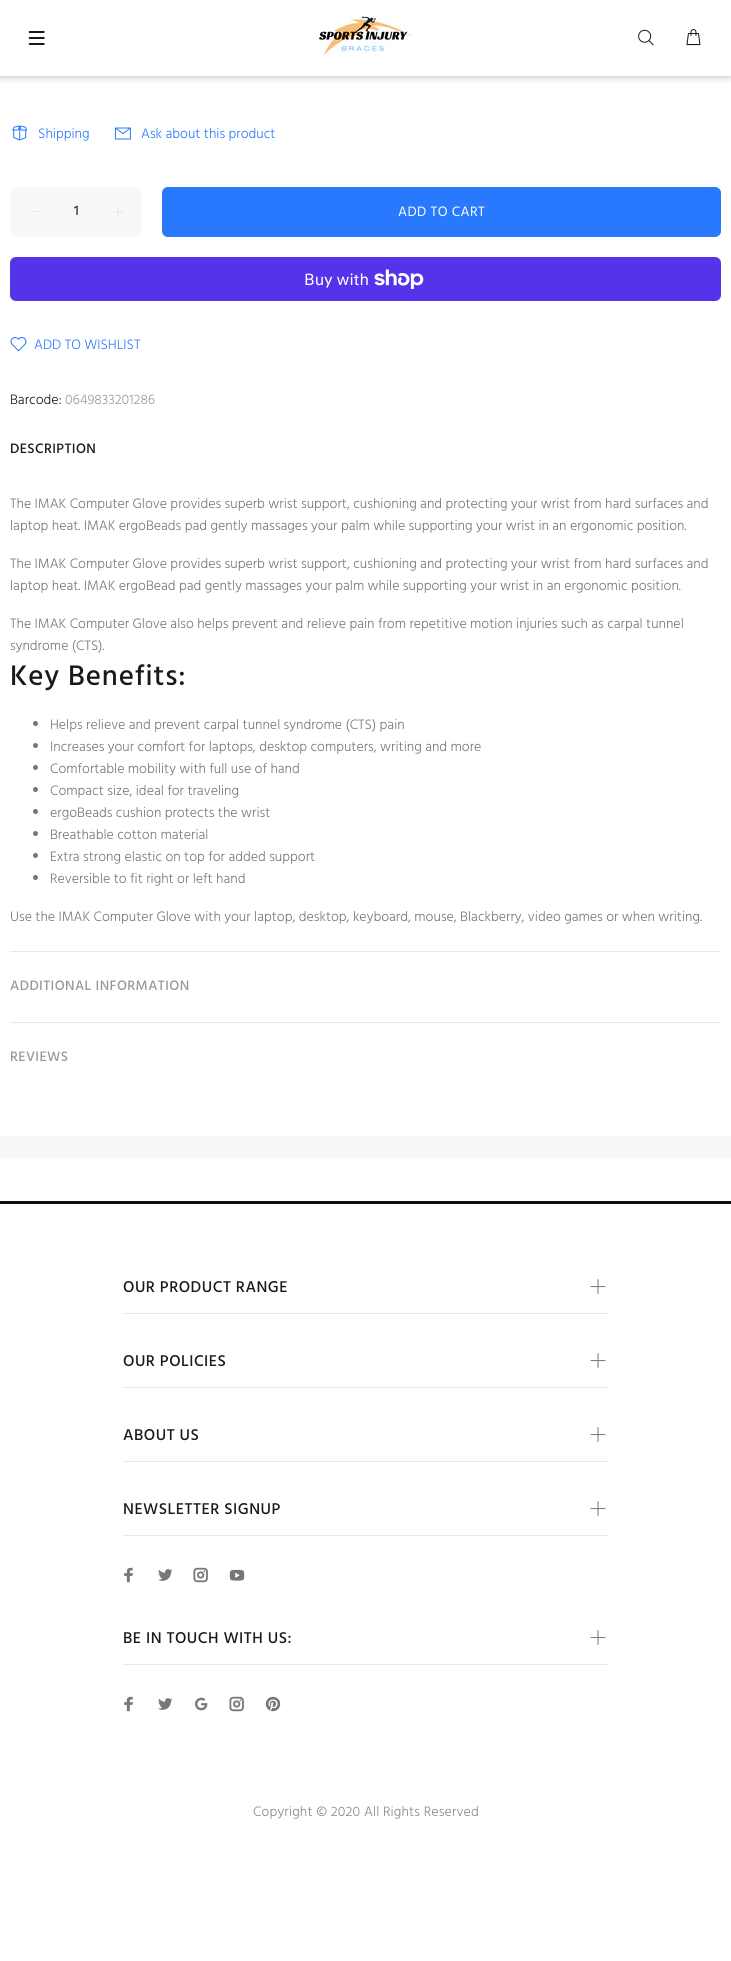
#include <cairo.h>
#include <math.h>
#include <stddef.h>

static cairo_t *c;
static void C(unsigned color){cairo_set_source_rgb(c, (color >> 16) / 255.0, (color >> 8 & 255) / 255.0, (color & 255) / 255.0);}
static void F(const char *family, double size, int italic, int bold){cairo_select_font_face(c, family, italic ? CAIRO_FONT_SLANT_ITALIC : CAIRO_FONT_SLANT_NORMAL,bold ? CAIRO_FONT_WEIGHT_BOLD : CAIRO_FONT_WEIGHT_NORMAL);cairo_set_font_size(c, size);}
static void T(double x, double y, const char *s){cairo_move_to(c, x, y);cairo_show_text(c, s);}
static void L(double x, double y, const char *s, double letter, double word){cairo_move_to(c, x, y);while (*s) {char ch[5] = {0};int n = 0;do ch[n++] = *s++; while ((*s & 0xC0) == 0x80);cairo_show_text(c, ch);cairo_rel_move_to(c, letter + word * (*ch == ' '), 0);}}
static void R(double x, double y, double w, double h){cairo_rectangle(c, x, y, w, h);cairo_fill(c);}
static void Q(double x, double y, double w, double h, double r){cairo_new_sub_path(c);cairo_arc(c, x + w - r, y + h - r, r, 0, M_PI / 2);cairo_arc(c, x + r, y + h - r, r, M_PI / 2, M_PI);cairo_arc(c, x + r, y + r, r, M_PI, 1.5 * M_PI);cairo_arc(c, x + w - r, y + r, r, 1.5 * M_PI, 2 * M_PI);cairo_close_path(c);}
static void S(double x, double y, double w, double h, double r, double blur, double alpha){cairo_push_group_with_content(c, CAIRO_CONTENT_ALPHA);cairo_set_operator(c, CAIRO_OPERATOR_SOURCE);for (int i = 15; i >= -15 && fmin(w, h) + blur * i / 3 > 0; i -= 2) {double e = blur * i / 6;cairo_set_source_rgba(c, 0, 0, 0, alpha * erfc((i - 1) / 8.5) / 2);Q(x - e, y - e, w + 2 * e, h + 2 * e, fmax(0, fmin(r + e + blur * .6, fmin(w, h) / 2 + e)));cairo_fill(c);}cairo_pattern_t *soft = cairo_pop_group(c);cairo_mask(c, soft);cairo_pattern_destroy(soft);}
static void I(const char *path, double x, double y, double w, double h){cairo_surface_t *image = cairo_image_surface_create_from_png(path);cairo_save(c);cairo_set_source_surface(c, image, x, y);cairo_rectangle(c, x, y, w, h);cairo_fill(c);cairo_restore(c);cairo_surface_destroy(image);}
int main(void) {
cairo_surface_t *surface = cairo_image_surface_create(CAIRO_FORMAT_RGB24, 731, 1961);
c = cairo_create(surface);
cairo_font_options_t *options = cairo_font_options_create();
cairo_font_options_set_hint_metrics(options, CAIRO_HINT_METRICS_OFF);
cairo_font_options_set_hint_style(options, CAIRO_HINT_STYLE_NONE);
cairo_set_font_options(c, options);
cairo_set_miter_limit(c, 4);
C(0xffffff);
cairo_paint(c);
C(0x000000);
S(0,0,731,76,0,4,.3);
C(0xffffff);
R(0,0,731,76);
I("1.png",28,31,17,14);
I("2.png",318,15,95,40);
I("3.png",638,29,16,17);
I("4.png",686,29,15,17);
I("5.png",12,125,16,16);
F("Hind Light",14,0,0);
C(0x2879fe);
T(38,138,"Shipping");
I("6.png",114,127,17,13);
T(141,138,"Ask about this product");
C(0xf7f8fa);
Q(10,187,132,50,6);
cairo_fill(c);
C(0xd8d8d8);
cairo_new_path(c);
cairo_move_to(c,39.5,211.5);
cairo_line_to(c,39.5,212);
cairo_line_to(c,30.5,212);
cairo_line_to(c,31,211.5);
cairo_close_path(c);
cairo_fill(c);
F("Hind Medium",14,0,0);
C(0x333333);
T(74,215,"1");
I("7.png",113,207,10,9);
C(0x2879fe);
Q(162,187,559,50,6);
cairo_fill(c);
F("Hind",14,0,0);
C(0xffffff);
L(398,216,"ADD TO CART",.4,0);
C(0x5433eb);
Q(10,257,711,44,6);
cairo_fill(c);
F("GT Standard",16,0,0);
C(0xffffff);
T(304,285,"Buy with");
I("8.png",374,269,50,20);
I("9.png",10,337,17,15);
F("Hind Light",14,0,0);
C(0x2879fe);
T(34,349,"ADD TO WISHLIST");
C(0x191919);
T(10,404,"Barcode:");
C(0x999999);
T(65,404,"0649833201286");
C(0xe9e7e7);
R(10,951,711,1);
F("Hind Medium",14,0,0);
C(0x191919);
L(10,453,"DESCRIPTION",.4,0);
F("Hind Light",14,0,0);
C(0x777777);
T(10,508,"The IMAK Computer Glove provides superb wrist support, cushioning and protecting your wrist from hard surfaces and");
T(10,530,"laptop heat. IMAK ergoBeads pad gently massages your palm while supporting your wrist in an ergonomic position.");
T(10,568,"The IMAK Computer Glove provides superb wrist support, cushioning and protecting your wrist from hard surfaces and");
T(10,590,"laptop heat. IMAK ergoBead pad gently massages your palm while supporting your wrist in an ergonomic position.");
T(10,628,"The IMAK Computer Glove also helps prevent and relieve pain from repetitive motion injuries such as carpal tunnel");
T(10,650,"syndrome (CTS).");
F("Hind Medium",29,0,0);
C(0x191919);
L(10,685,"Key Benefits:",.9,0);
C(0x777777);
cairo_new_path(c);
cairo_arc(c,35.5,723.5,2.5,0,2 * M_PI);
cairo_fill(c);
F("Hind Light",14,0,0);
T(50,729,"Helps relieve and prevent carpal tunnel syndrome (CTS) pain");
cairo_new_path(c);
cairo_arc(c,35.5,745.5,2.5,0,2 * M_PI);
cairo_fill(c);
T(50,751,"Increases your comfort for laptops, desktop computers, writing and more");
cairo_new_path(c);
cairo_arc(c,35.5,767.5,2.5,0,2 * M_PI);
cairo_fill(c);
T(50,773,"Comfortable mobility with full use of hand");
cairo_new_path(c);
cairo_arc(c,35.5,789.5,2.5,0,2 * M_PI);
cairo_fill(c);
T(50,795,"Compact size, ideal for traveling");
cairo_new_path(c);
cairo_arc(c,35.5,811.5,2.5,0,2 * M_PI);
cairo_fill(c);
T(50,817,"ergoBeads cushion protects the wrist");
cairo_new_path(c);
cairo_arc(c,35.5,833.5,2.5,0,2 * M_PI);
cairo_fill(c);
T(50,839,"Breathable cotton material");
cairo_new_path(c);
cairo_arc(c,35.5,855.5,2.5,0,2 * M_PI);
cairo_fill(c);
T(50,861,"Extra strong elastic on top for added support");
cairo_new_path(c);
cairo_arc(c,35.5,877.5,2.5,0,2 * M_PI);
cairo_fill(c);
T(50,883,"Reversible to fit right or left hand");
T(10,921,"Use the IMAK Computer Glove with your laptop, desktop, keyboard, mouse, Blackberry, video games or when writing.");
C(0xe9e7e7);
R(10,1022,711,1);
F("Hind Medium",14,0,0);
C(0x999999);
L(10,990,"ADDITIONAL INFORMATION",.4,0);
L(10,1061,"REVIEWS",.4,0);
C(0xf7f8fa);
R(0,1136,731,22);
C(0x0f0f0f);
R(0,1201,731,3);
C(0xe9e7e7);
R(123,1313,486,1);
F("Hind Medium",16,0,0);
C(0x191919);
L(123,1292,"OUR PRODUCT RANGE",.5,0);
I("10.png",590,1279,16,15);
C(0xe9e7e7);
R(123,1387,486,1);
C(0x191919);
L(123,1366,"OUR POLICIES",.5,0);
I("10.png",590,1353,16,15);
C(0xe9e7e7);
R(123,1461,486,1);
C(0x191919);
L(123,1440,"ABOUT US",.5,0);
I("10.png",590,1427,16,15);
C(0xe9e7e7);
R(123,1535,486,1);
C(0x191919);
L(123,1514,"NEWSLETTER SIGNUP",.5,0);
I("10.png",590,1501,16,15);
I("11.png",124,1567,10,16);
I("12.png",158,1569,15,12);
I("13.png",193,1567,15,16);
I("14.png",229,1569,16,12);
C(0xe9e7e7);
R(123,1664,486,1);
C(0x191919);
L(123,1643,"BE IN TOUCH WITH US:",.5,0);
I("10.png",590,1630,16,15);
I("11.png",124,1696,10,16);
I("12.png",158,1698,15,12);
I("15.png",195,1697,13,14);
I("13.png",229,1696,15,16);
I("16.png",265,1696,16,16);
F("Hind Light",14,0,0);
C(0x888888);
L(253,1816,"Copyright © 2020 All Rights Reserved",.15,0);
cairo_surface_write_to_png(surface, "o.png");
cairo_font_options_destroy(options);
cairo_destroy(c);
cairo_surface_destroy(surface);
return 0;
}
